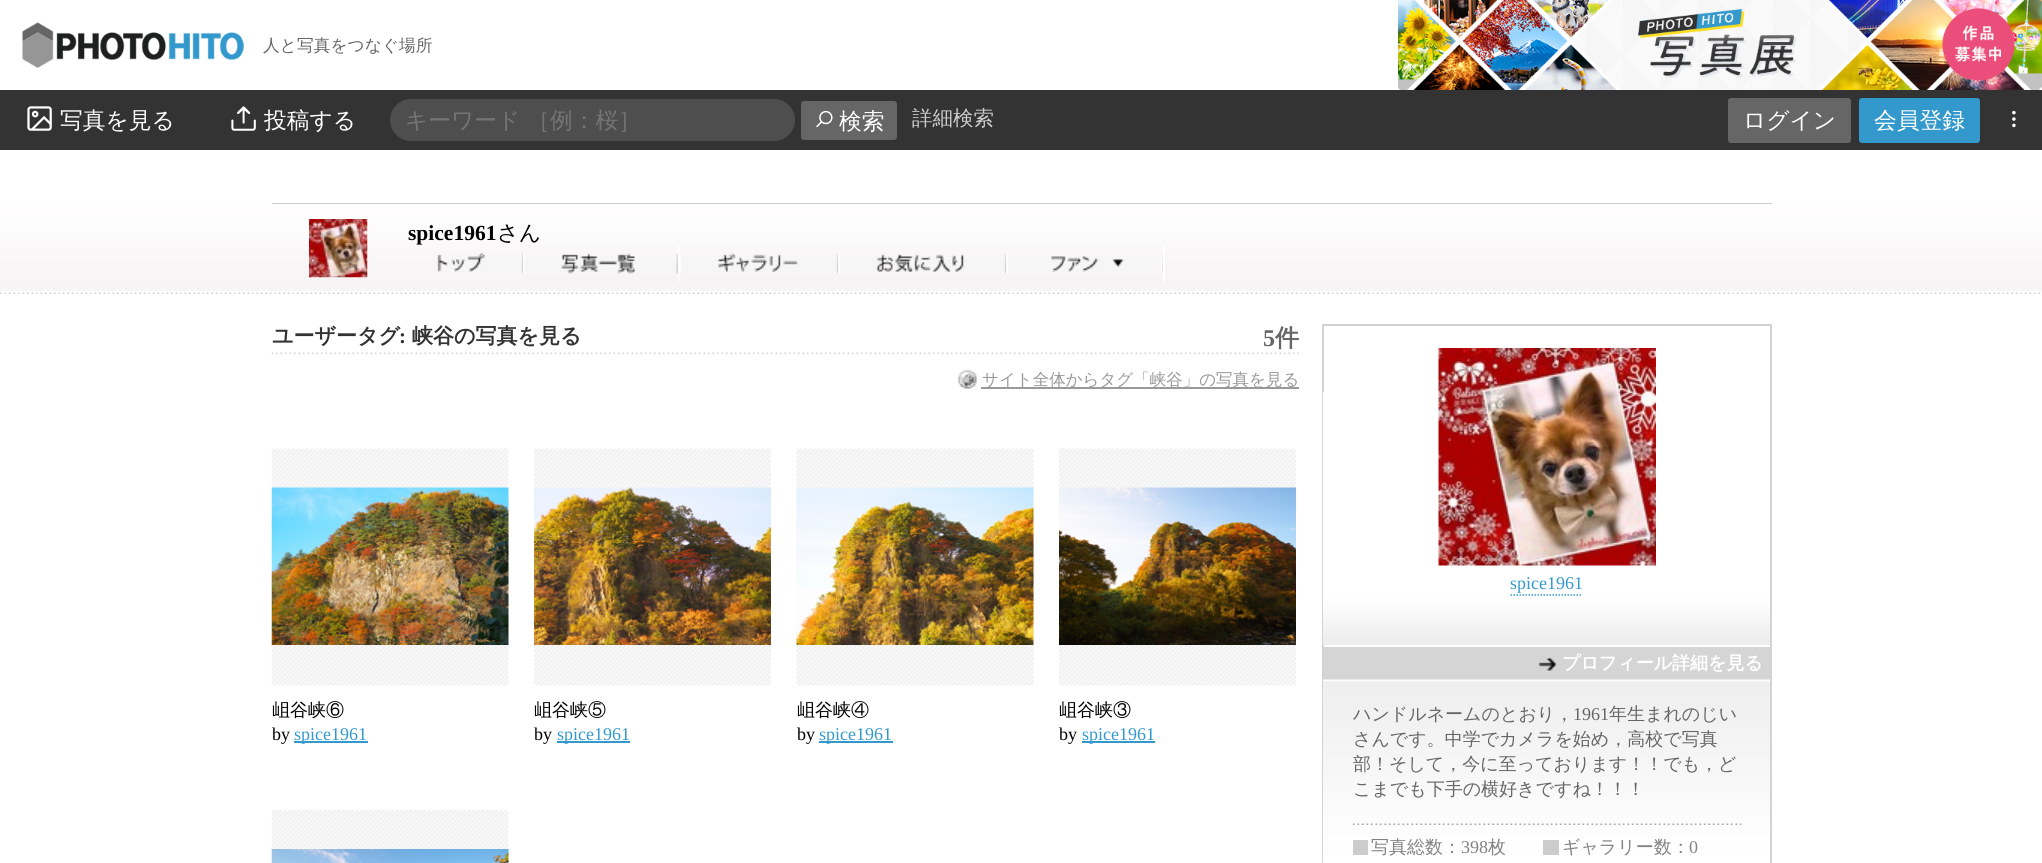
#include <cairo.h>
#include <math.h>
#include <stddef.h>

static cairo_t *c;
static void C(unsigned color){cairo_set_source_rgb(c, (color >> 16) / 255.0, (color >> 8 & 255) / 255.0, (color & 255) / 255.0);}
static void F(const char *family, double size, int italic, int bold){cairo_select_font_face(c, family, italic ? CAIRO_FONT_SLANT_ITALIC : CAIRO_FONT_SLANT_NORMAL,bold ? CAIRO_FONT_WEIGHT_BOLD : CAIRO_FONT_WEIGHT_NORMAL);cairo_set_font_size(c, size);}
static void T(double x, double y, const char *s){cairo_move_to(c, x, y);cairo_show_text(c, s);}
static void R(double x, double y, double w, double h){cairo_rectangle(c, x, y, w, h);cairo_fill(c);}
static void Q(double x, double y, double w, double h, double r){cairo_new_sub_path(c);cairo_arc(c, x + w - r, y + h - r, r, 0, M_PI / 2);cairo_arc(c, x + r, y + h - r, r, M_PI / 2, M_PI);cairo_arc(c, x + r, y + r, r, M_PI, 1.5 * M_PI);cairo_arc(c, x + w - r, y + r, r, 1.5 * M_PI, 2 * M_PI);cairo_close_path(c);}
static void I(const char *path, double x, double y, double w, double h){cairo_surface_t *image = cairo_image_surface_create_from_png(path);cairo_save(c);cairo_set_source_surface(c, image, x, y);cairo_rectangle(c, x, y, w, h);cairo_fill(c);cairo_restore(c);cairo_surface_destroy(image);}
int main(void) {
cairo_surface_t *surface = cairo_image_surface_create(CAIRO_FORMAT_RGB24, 2042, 863);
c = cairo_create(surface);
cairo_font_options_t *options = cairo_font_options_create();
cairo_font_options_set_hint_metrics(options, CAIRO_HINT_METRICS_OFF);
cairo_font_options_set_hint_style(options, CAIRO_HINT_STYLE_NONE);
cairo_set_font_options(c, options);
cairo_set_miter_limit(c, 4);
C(0xffffff);
cairo_paint(c);
I("1.png",22,22,222,46);
F("WenQuanYi Zen Hei Medium",16.75,0,0);
C(0x666666);
T(263,51,"人と写真をつなぐ場所");
I("2.png",1398,0,644,90);
C(0x333333);
R(0,90,2042,60);
I("3.png",27,106,25,25);
F("WenQuanYi Zen Hei Medium",22.75,0,0);
C(0xffffff);
T(60,128,"写真を見る");
I("4.png",231,106,25,25);
T(264,128,"投稿する");
C(0x4e4e4e);
Q(390,99,405,42,21);
cairo_fill(c);
C(0x757575);
T(405,128,"キーワード ［例：桜］");
C(0x666666);
Q(801,101,96,39,3);
cairo_fill(c);
I("5.png",816,110,17,18);
C(0xffffff);
T(839,129,"検索");
F("WenQuanYi Zen Hei Medium",20.5,0,0);
C(0xcccccc);
T(912,125,"詳細検索");
C(0x666666);
Q(1728,98,123,45,3);
cairo_fill(c);
F("WenQuanYi Zen Hei Medium",22.75,0,0);
C(0xffffff);
T(1743,128,"ログイン");
C(0x3399cc);
Q(1859,98,121,45,3);
cairo_fill(c);
C(0xffffff);
T(1874,128,"会員登録");
I("6.png",2012,110,4,18);
C(0xcccccc);
R(272,203,1500,1);
I("7.png",0,204,2042,90);
I("8.png",309,219,59,59);
F("Liberation Serif",21.5,0,1);
C(0x000000);
T(408,240,"spice1961");
F("WenQuanYi Zen Hei Medium",21.5,0,0);
T(497,240,"さん");
I("9.png",437,253,87,21);
I("10.png",523,254,1,19);
C(0xffffff);
R(524,280,2,1);
I("11.png",523,246,155,35);
cairo_set_source_rgba(c,1,1,1,0.5);
R(523,254,1,19);
C(0xffffff);
R(678,246,2,35);
I("12.png",679,246,160,34);
I("10.png",838,254,1,19);
R(839,280,2,1);
I("13.png",838,246,169,35);
I("14.png",838,254,169,19);
R(1007,280,2,1);
I("15.png",1006,246,157,35);
I("16.png",1006,253,157,21);
R(1163,246,2,35);
I("17.png",271,352,1028,3);
F("WenQuanYi Zen Hei",21,0,1);
C(0x333333);
T(272,343,"ユーザータグ");
F("Liberation Serif",21,0,1);
T(399,343,":");
F("WenQuanYi Zen Hei",21,0,1);
T(412,343,"峡谷の写真を見る");
F("Liberation Serif",24,0,1);
C(0x666666);
T(1263,346,"5");
F("WenQuanYi Zen Hei",24,0,1);
T(1275,346,"件");
I("18.png",957,369,21,20);
C(0x999999);
R(981,387,318,2);
F("WenQuanYi Zen Hei Medium",16.5,0,0);
T(982,385,"サイト全体からタグ「峡谷」の写真を見る");
I("19.png",271,448,238,238);
I("20.png",271,487,238,158);
F("WenQuanYi Zen Hei Medium",18,0,0);
C(0x000000);
T(272,716,"岨谷峡⑥");
F("Liberation Serif",18,0,0);
T(272,740,"by");
C(0x3399cc);
R(294,741,74,2);
T(294,740,"spice1961");
I("21.png",534,448,237,238);
I("22.png",534,487,237,158);
F("WenQuanYi Zen Hei Medium",18,0,0);
C(0x000000);
T(534,716,"岨谷峡⑤");
F("Liberation Serif",18,0,0);
T(534,740,"by");
C(0x3399cc);
R(557,741,73,2);
T(557,740,"spice1961");
I("23.png",796,448,238,238);
I("24.png",796,487,238,158);
F("WenQuanYi Zen Hei Medium",18,0,0);
C(0x000000);
T(797,716,"岨谷峡④");
F("Liberation Serif",18,0,0);
T(797,740,"by");
C(0x3399cc);
R(819,741,74,2);
T(819,740,"spice1961");
I("25.png",1059,448,237,238);
I("26.png",1059,487,237,158);
F("WenQuanYi Zen Hei Medium",18,0,0);
C(0x000000);
T(1059,716,"岨谷峡③");
F("Liberation Serif",18,0,0);
T(1059,740,"by");
C(0x3399cc);
R(1082,741,73,2);
T(1082,740,"spice1961");
I("27.png",271,810,238,53);
I("28.png",271,849,238,14);
cairo_rectangle(c,1323,325,448,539);
C(0xd3d3d3);
cairo_stroke(c);
I("29.png",1323,391,447,254);
I("30.png",1438,348,218,218);
C(0x3399cc);
T(1510,589,"spice1961");
cairo_new_path(c);
cairo_move_to(c,1510.5,595);
cairo_line_to(c,1582.5,595);
cairo_set_line_width(c,1.5);
cairo_set_dash(c,(double[]){1.5,1.5},2,0);
cairo_stroke(c);
C(0xd5d5d5);
R(1324,647,446,33);
I("31.png",1539,658,18,13);
F("WenQuanYi Zen Hei",18,0,1);
C(0xffffff);
T(1562,669,"プロフィール詳細を見る");
I("32.png",1323,679,447,184);
I("33.png",1353,823,389,2);
F("WenQuanYi Zen Hei Medium",18,0,0);
C(0x666666);
T(1353,720,"ハンドルネームのとおり，");
F("Liberation Serif",18,0,0);
T(1573,720,"1961");
F("WenQuanYi Zen Hei Medium",18,0,0);
T(1609,720,"年生まれのじい");
T(1353,745,"さんです。中学でカメラを始め，高校で写真");
T(1353,770,"部！そして，今に至っております！！でも，ど");
T(1353,795,"こまでも下手の横好きですね！！！");
C(0xcccccc);
R(1353,840,15,15);
C(0x838383);
T(1371,853,"写真総数：");
F("Liberation Serif",18,0,0);
T(1461,853,"398");
F("WenQuanYi Zen Hei Medium",18,0,0);
T(1488,853,"枚");
C(0xcccccc);
R(1543,840,16,15);
C(0x838383);
T(1562,853,"ギャラリー数：");
F("Liberation Serif",18,0,0);
T(1689,853,"0");
cairo_surface_write_to_png(surface, "o.png");
cairo_font_options_destroy(options);
cairo_destroy(c);
cairo_surface_destroy(surface);
return 0;
}
